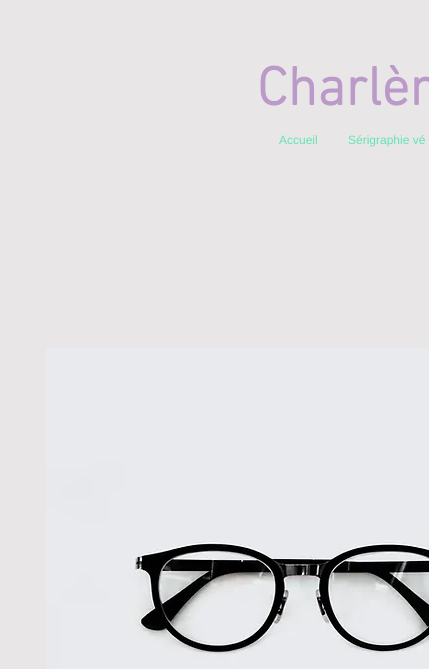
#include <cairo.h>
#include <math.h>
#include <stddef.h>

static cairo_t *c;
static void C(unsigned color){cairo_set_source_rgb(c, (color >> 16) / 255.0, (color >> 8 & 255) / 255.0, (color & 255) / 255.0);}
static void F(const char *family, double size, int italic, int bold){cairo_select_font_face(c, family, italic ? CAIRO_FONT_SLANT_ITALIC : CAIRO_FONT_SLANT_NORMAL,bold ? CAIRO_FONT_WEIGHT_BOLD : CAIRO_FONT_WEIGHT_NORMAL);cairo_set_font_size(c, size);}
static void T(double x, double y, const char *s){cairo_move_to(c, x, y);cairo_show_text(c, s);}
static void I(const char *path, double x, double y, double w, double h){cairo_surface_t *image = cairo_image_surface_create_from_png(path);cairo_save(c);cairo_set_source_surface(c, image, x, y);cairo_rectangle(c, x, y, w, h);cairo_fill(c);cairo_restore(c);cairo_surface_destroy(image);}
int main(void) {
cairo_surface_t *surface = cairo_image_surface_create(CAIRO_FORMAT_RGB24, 429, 669);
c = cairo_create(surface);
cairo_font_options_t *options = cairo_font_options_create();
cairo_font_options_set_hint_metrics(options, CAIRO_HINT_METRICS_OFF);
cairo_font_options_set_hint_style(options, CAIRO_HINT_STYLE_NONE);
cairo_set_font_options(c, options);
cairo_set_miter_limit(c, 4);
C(0xe8e6e6);
cairo_paint(c);
F("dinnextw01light",55,0,1);
C(0xbb9ac9);
T(257,105,"Charlèn");
F("Liberation Sans",12,0,0);
C(0x63e4b3);
T(279,144,"Accueil");
T(348,144,"Sérigraphie vé");
I("1.png",46,348,383,321);
cairo_surface_write_to_png(surface, "o.png");
cairo_font_options_destroy(options);
cairo_destroy(c);
cairo_surface_destroy(surface);
return 0;
}
